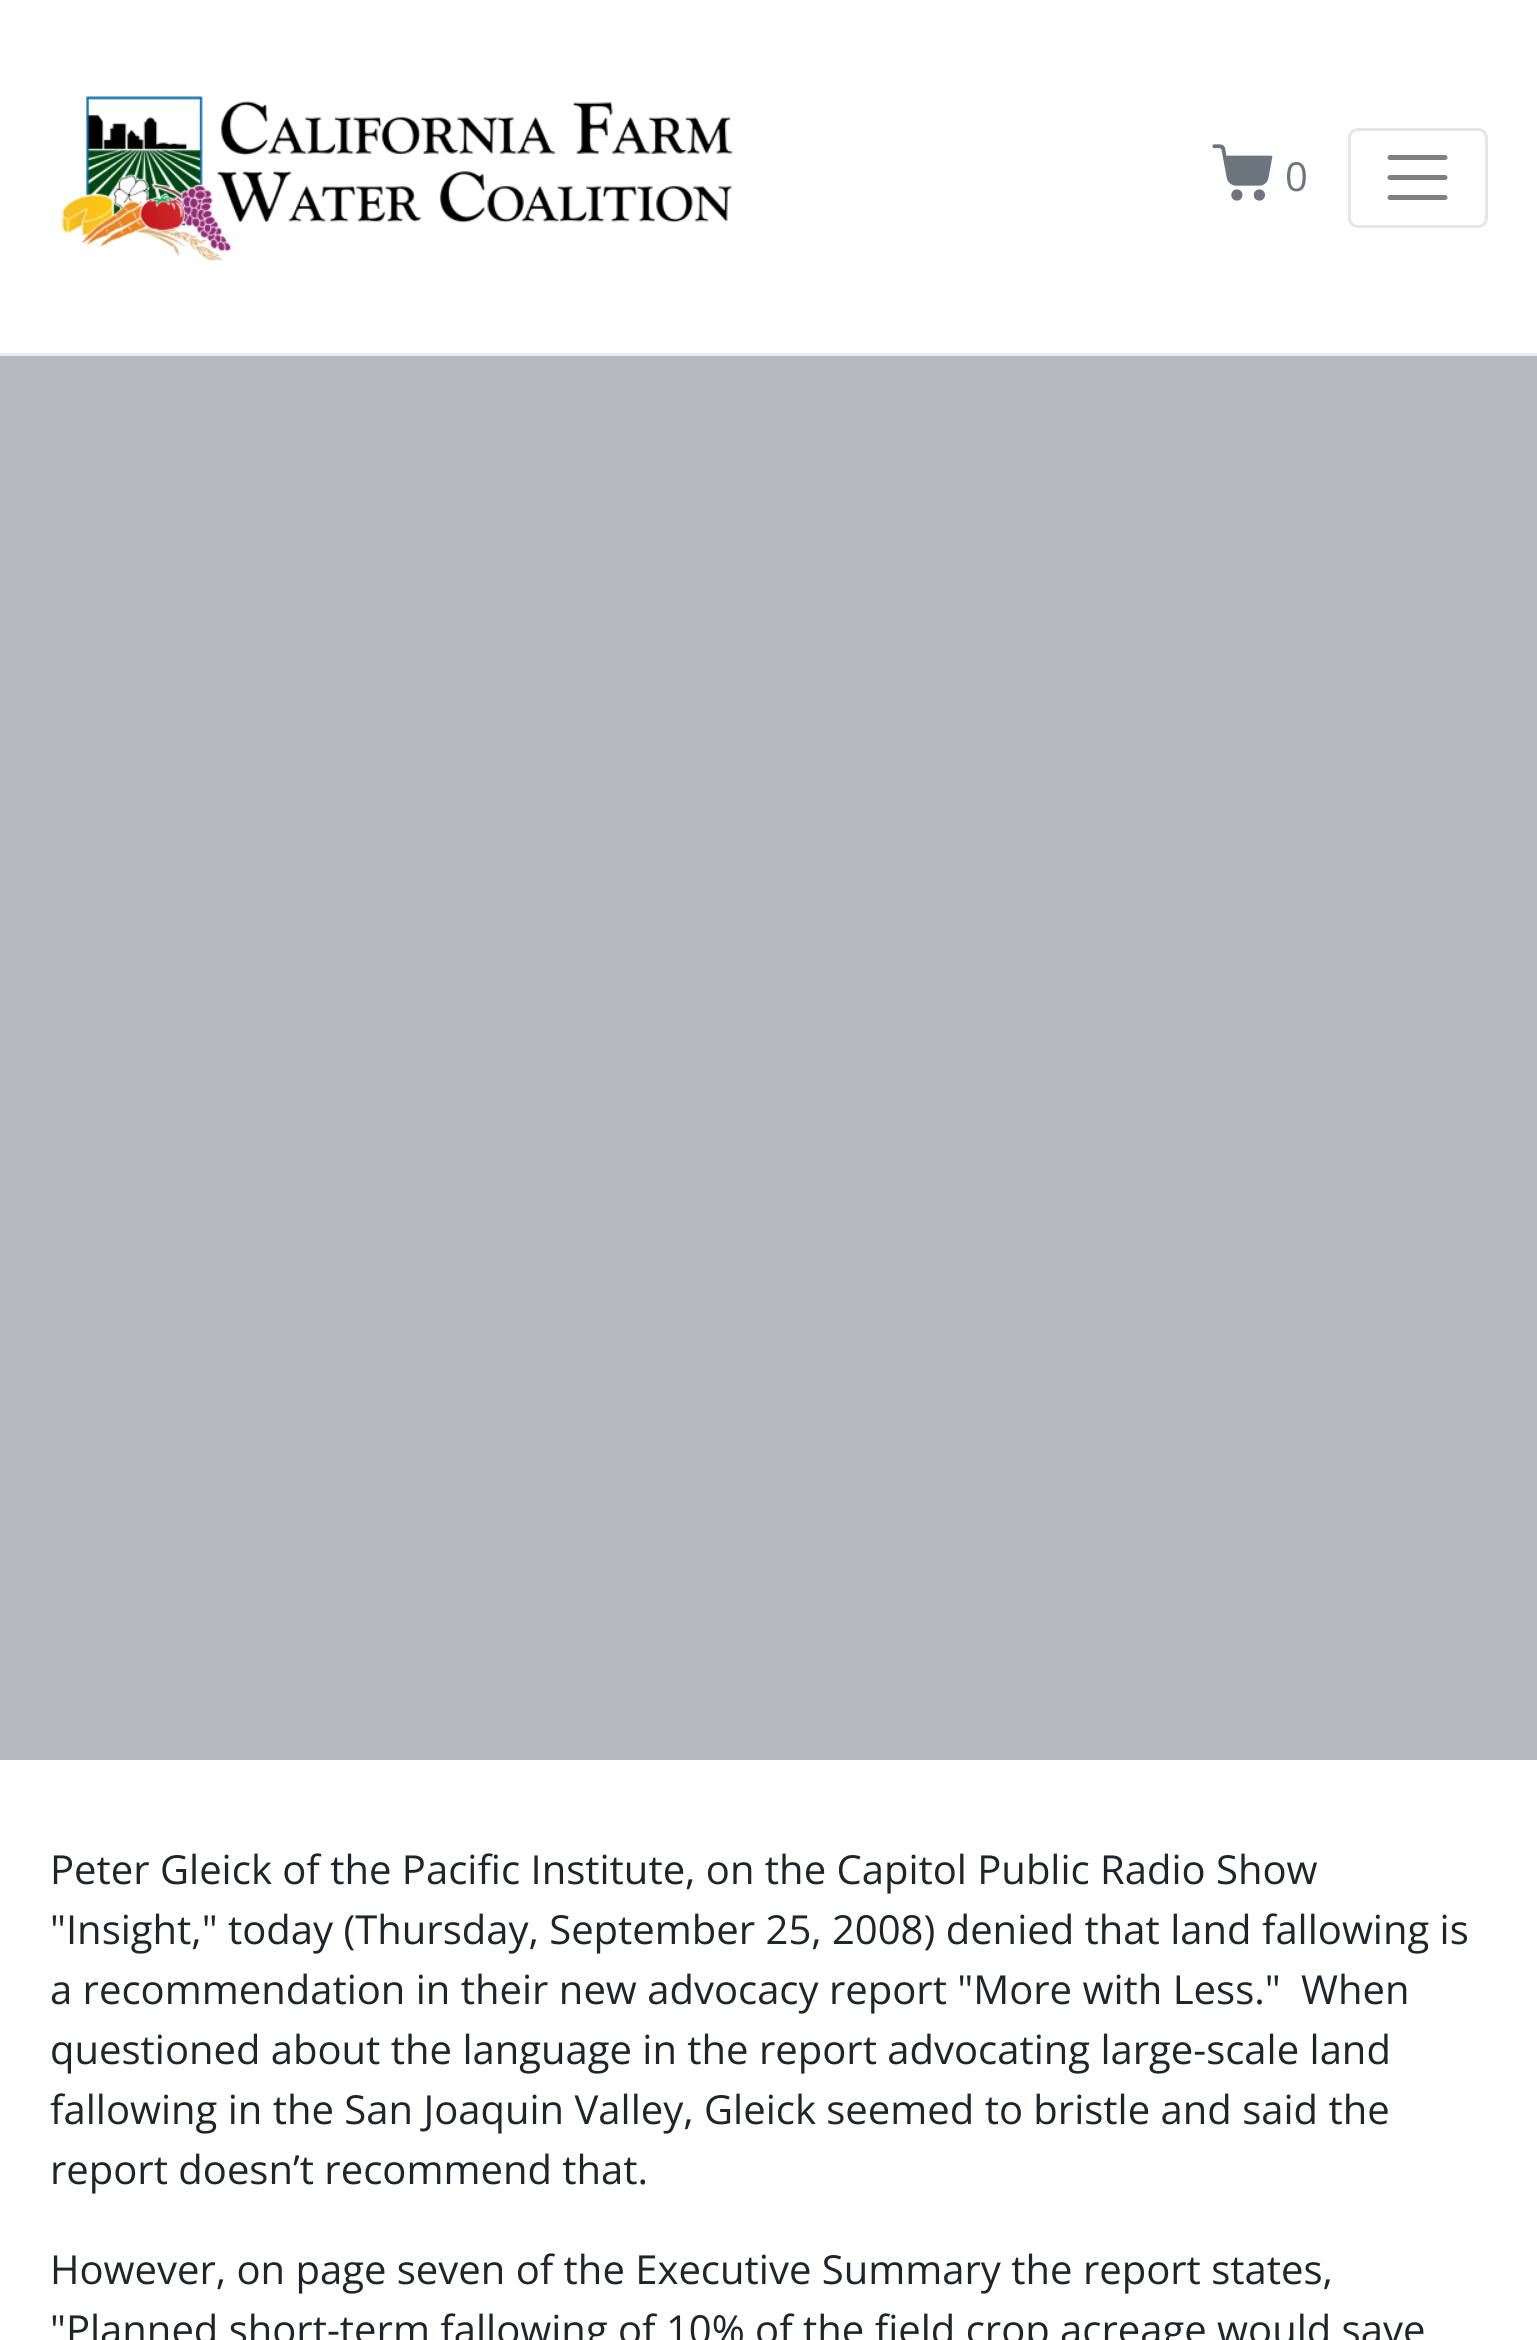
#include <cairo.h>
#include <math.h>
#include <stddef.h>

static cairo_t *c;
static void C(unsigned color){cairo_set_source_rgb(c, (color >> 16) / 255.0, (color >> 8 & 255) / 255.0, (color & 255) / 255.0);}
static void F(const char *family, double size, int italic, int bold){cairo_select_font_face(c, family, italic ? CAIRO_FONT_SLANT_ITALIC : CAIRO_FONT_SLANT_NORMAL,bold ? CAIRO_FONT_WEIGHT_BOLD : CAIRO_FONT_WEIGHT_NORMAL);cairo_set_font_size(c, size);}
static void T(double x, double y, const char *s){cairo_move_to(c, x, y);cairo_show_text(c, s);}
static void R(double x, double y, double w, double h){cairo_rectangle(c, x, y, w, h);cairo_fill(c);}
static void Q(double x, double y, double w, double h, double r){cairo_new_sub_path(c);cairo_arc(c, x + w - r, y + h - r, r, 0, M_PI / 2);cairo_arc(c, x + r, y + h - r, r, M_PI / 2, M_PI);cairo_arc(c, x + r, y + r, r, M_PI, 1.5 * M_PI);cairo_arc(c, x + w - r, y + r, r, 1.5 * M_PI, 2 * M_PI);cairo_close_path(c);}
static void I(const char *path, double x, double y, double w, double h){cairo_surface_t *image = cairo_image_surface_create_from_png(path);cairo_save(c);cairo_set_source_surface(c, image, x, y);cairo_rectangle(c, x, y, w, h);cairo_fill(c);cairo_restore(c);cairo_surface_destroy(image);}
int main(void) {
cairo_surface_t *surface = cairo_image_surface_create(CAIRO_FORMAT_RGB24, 1537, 2340);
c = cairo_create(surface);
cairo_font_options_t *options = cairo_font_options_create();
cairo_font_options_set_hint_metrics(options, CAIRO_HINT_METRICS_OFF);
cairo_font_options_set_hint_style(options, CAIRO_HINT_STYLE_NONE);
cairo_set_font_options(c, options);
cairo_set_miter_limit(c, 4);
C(0xffffff);
cairo_paint(c);
C(0xe9ecef);
R(0,353,1537,3);
I("1.png",62,96,671,165);
I("2.png",1212,144,61,57);
F("Open Sans",40,0,0);
C(0x6c757d);
T(1285,191,"0");
Q(1349.5,129.5,137,97,8.5);
C(0xe6e6e6);
cairo_set_line_width(c,3);
cairo_stroke(c);
cairo_new_path(c);
cairo_move_to(c,1390,157.5);
cairo_line_to(c,1445,157.5);
cairo_move_to(c,1390,177.5);
cairo_line_to(c,1445,177.5);
cairo_move_to(c,1390,197.5);
cairo_line_to(c,1445,197.5);
C(0x808080);
cairo_set_line_width(c,5);
cairo_set_line_cap(c,CAIRO_LINE_CAP_ROUND);
cairo_stroke(c);
C(0xb6babe);
R(0,356,1537,1404);
C(0x212529);
T(50,1884,"Peter Gleick of the Pacific Institute, on the Capitol Public Radio Show");
T(50,1944,"\"Insight,\" today (Thursday, September 25, 2008) denied that land fallowing is");
T(50,2004,"a recommendation in their new advocacy report \"More with Less.\"");
T(1301,2004,"When");
T(50,2064,"questioned about the language in the report advocating large-scale land");
T(50,2124,"fallowing in the San Joaquin Valley, Gleick seemed to bristle and said the");
T(50,2184,"report doesn’t recommend that.");
T(50,2284,"However, on page seven of the Executive Summary the report states,");
T(50,2344,"\"Planned short-term fallowing of 10% of the field crop acreage would save");
cairo_surface_write_to_png(surface, "o.png");
cairo_font_options_destroy(options);
cairo_destroy(c);
cairo_surface_destroy(surface);
return 0;
}
